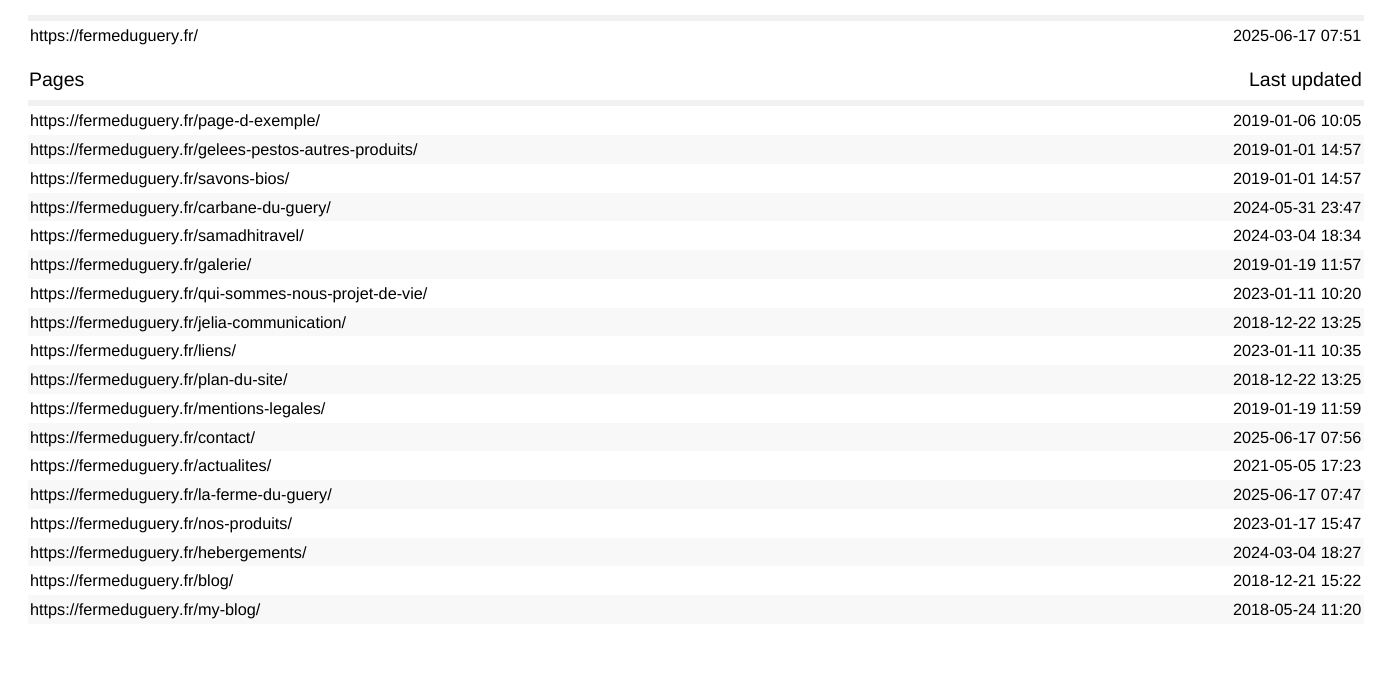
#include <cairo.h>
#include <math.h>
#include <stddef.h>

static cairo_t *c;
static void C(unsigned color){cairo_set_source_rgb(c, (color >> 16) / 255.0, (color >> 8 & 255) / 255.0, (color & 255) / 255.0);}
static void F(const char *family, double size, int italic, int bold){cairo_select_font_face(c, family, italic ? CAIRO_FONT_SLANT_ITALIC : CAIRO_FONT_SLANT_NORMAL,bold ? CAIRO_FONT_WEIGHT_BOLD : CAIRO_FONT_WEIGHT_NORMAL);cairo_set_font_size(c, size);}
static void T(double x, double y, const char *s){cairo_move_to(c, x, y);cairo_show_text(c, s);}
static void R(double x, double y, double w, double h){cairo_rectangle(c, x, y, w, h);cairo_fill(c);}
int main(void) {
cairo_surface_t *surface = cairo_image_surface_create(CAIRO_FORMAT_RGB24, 1391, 698);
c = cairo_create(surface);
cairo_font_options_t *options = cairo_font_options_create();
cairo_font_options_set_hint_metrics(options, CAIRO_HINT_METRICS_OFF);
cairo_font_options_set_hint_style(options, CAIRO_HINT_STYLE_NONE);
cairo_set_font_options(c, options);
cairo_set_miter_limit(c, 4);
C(0xffffff);
cairo_paint(c);
C(0xf1f1f1);
R(28,15,1336,6);
F("Liberation Sans",16.25,0,0);
C(0x000000);
T(30,41,"https://fermeduguery.fr/");
T(1233,41,"2025-06-17 07:51");
C(0xf1f1f1);
R(28,100,1336,6);
F("Liberation Sans",19.5,0,0);
C(0x000000);
T(29,86,"Pages");
T(1249,86,"Last updated");
F("Liberation Sans",16.25,0,0);
T(30,126,"https://fermeduguery.fr/page-d-exemple/");
T(1233,126,"2019-01-06 10:05");
C(0xf8f8f8);
R(28,135,1336,29);
C(0x000000);
T(30,155,"https://fermeduguery.fr/gelees-pestos-autres-produits/");
T(1233,155,"2019-01-01 14:57");
T(30,184,"https://fermeduguery.fr/savons-bios/");
T(1233,184,"2019-01-01 14:57");
C(0xf8f8f8);
R(28,193,1336,28);
C(0x000000);
T(30,213,"https://fermeduguery.fr/carbane-du-guery/");
T(1233,213,"2024-05-31 23:47");
T(30,241,"https://fermeduguery.fr/samadhitravel/");
T(1233,241,"2024-03-04 18:34");
C(0xf8f8f8);
R(28,250,1336,29);
C(0x000000);
T(30,270,"https://fermeduguery.fr/galerie/");
T(1233,270,"2019-01-19 11:57");
T(30,299,"https://fermeduguery.fr/qui-sommes-nous-projet-de-vie/");
T(1233,299,"2023-01-11 10:20");
C(0xf8f8f8);
R(28,308,1336,28);
C(0x000000);
T(30,328,"https://fermeduguery.fr/jelia-communication/");
T(1233,328,"2018-12-22 13:25");
T(30,356,"https://fermeduguery.fr/liens/");
T(1233,356,"2023-01-11 10:35");
C(0xf8f8f8);
R(28,365,1336,29);
C(0x000000);
T(30,385,"https://fermeduguery.fr/plan-du-site/");
T(1233,385,"2018-12-22 13:25");
T(30,414,"https://fermeduguery.fr/mentions-legales/");
T(1233,414,"2019-01-19 11:59");
C(0xf8f8f8);
R(28,423,1336,28);
C(0x000000);
T(30,443,"https://fermeduguery.fr/contact/");
T(1233,443,"2025-06-17 07:56");
T(30,471,"https://fermeduguery.fr/actualites/");
T(1233,471,"2021-05-05 17:23");
C(0xf8f8f8);
R(28,480,1336,29);
C(0x000000);
T(30,500,"https://fermeduguery.fr/la-ferme-du-guery/");
T(1233,500,"2025-06-17 07:47");
T(30,529,"https://fermeduguery.fr/nos-produits/");
T(1233,529,"2023-01-17 15:47");
C(0xf8f8f8);
R(28,538,1336,28);
C(0x000000);
T(30,558,"https://fermeduguery.fr/hebergements/");
T(1233,558,"2024-03-04 18:27");
T(30,586,"https://fermeduguery.fr/blog/");
T(1233,586,"2018-12-21 15:22");
C(0xf8f8f8);
R(28,595,1336,29);
C(0x000000);
T(30,615,"https://fermeduguery.fr/my-blog/");
T(1233,615,"2018-05-24 11:20");
cairo_surface_write_to_png(surface, "o.png");
cairo_font_options_destroy(options);
cairo_destroy(c);
cairo_surface_destroy(surface);
return 0;
}
